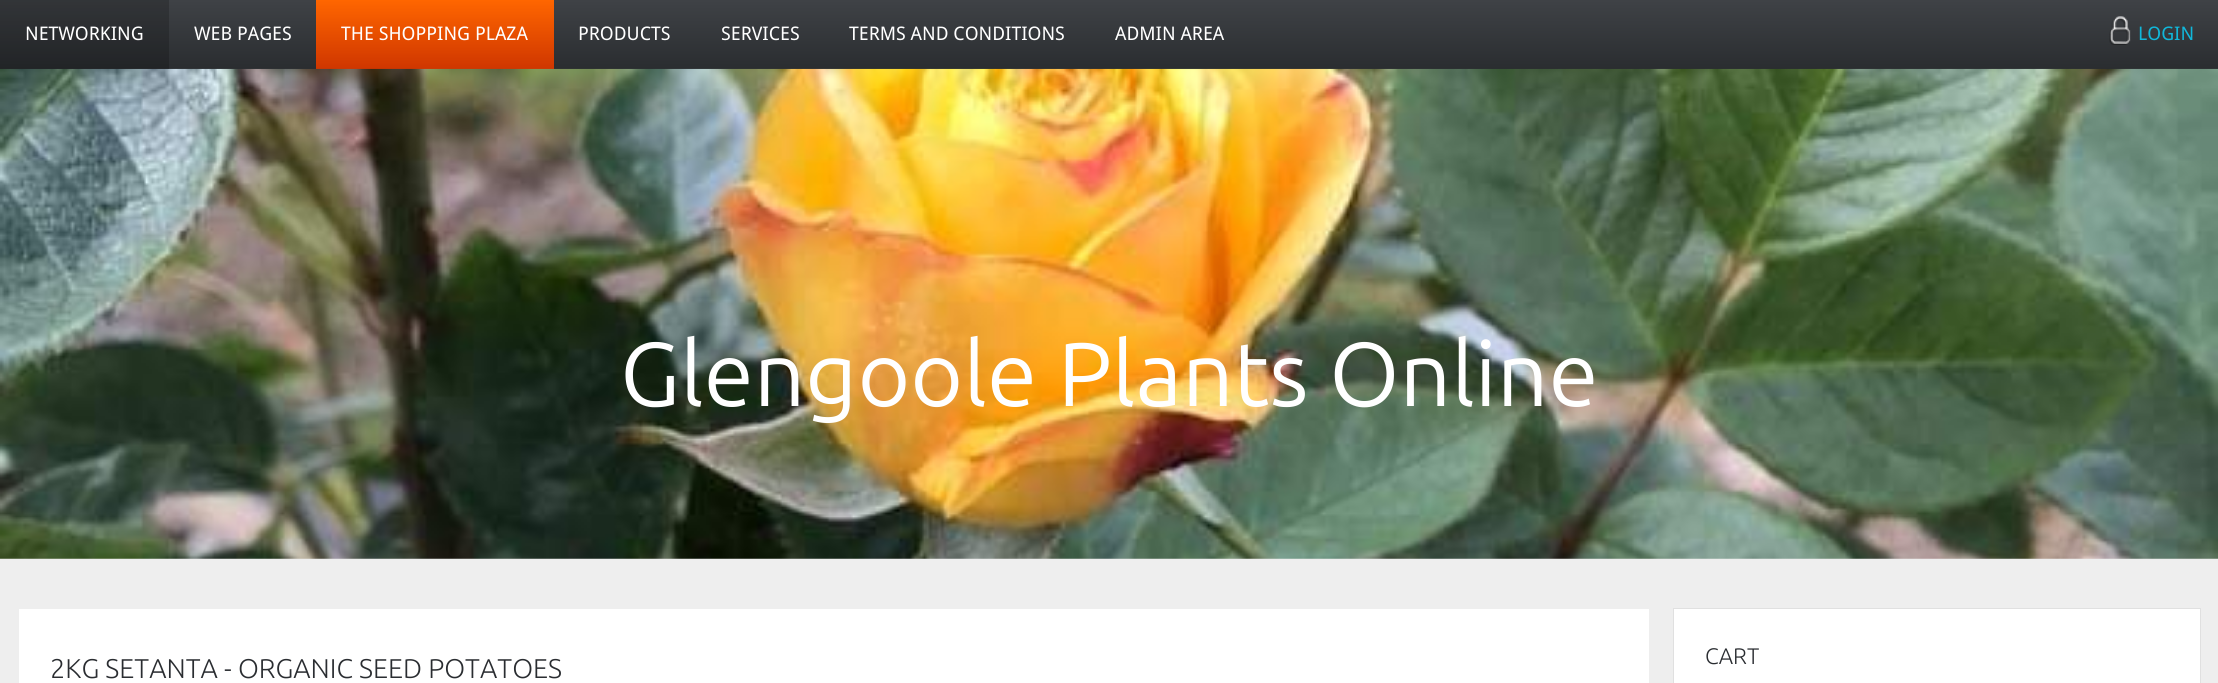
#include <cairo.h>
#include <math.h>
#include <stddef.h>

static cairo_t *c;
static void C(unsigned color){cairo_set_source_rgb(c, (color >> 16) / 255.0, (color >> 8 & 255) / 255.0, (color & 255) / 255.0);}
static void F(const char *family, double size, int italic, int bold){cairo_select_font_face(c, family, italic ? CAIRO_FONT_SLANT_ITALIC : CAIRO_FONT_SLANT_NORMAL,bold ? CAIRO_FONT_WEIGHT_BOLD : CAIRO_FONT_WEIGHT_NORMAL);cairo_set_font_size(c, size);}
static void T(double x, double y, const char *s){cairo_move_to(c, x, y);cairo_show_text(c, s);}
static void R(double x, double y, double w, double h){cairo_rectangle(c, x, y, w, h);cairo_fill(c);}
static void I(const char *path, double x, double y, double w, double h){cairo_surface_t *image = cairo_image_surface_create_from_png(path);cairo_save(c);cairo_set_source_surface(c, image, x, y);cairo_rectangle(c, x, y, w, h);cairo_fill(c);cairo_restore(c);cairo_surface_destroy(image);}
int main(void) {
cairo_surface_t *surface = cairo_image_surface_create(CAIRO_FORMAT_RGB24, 2218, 683);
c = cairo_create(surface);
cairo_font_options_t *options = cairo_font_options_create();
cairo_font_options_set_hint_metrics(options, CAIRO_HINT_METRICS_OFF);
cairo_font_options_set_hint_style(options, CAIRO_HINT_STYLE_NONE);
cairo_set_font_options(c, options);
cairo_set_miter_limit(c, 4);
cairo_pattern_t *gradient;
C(0xeeeeee);
cairo_paint(c);
gradient = cairo_pattern_create_linear(1109,0,1109,69);
cairo_pattern_add_color_stop_rgba(gradient,0,0.247,0.259,0.275,1);
cairo_pattern_add_color_stop_rgba(gradient,1,0.165,0.176,0.188,1);
cairo_set_source(c,gradient);
cairo_pattern_destroy(gradient);
R(0,0,2218,69);
gradient = cairo_pattern_create_linear(435,0,435,69);
cairo_pattern_add_color_stop_rgba(gradient,0,1,0.4,0,1);
cairo_pattern_add_color_stop_rgba(gradient,1,0.812,0.212,0,1);
cairo_set_source(c,gradient);
cairo_pattern_destroy(gradient);
R(316,0,238,69);
I("2.png",0,68,2218,491);
cairo_set_source_rgba(c,0,0,0,0.2);
R(0,0,169,69);
F("Droid Sans",18.75,0,0);
C(0xffffff);
T(25,40,"NETWORKING");
T(194,40,"WEB PAGES");
T(341,40,"THE SHOPPING PLAZA");
T(578,40,"PRODUCTS");
T(721,40,"SERVICES");
T(849,40,"TERMS AND CONDITIONS");
T(1115,40,"ADMIN AREA");
I("1.png",2109,16,22,29);
C(0x11b7da);
T(2138,40,"LOGIN");
F("Ubuntu",90.5,0,0);
C(0xffffff);
T(620,406,"Glengoole Plants Online");
R(19,609,1630,74);
F("Ubuntu Light",27.1,0,0);
C(0x2a2d31);
T(50,678,"2KG SETANTA - ORGANIC SEED POTATOES");
cairo_rectangle(c,1673.5,608.5,527,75);
cairo_set_source_rgba(c,0,0,0,0.06);
cairo_set_line_width(c,1);
cairo_stroke(c);
C(0xffffff);
R(1674,609,526,74);
F("Ubuntu Light",22.5,0,0);
C(0x2a2d31);
T(1705,664,"CART");
cairo_surface_write_to_png(surface, "o.png");
cairo_font_options_destroy(options);
cairo_destroy(c);
cairo_surface_destroy(surface);
return 0;
}
